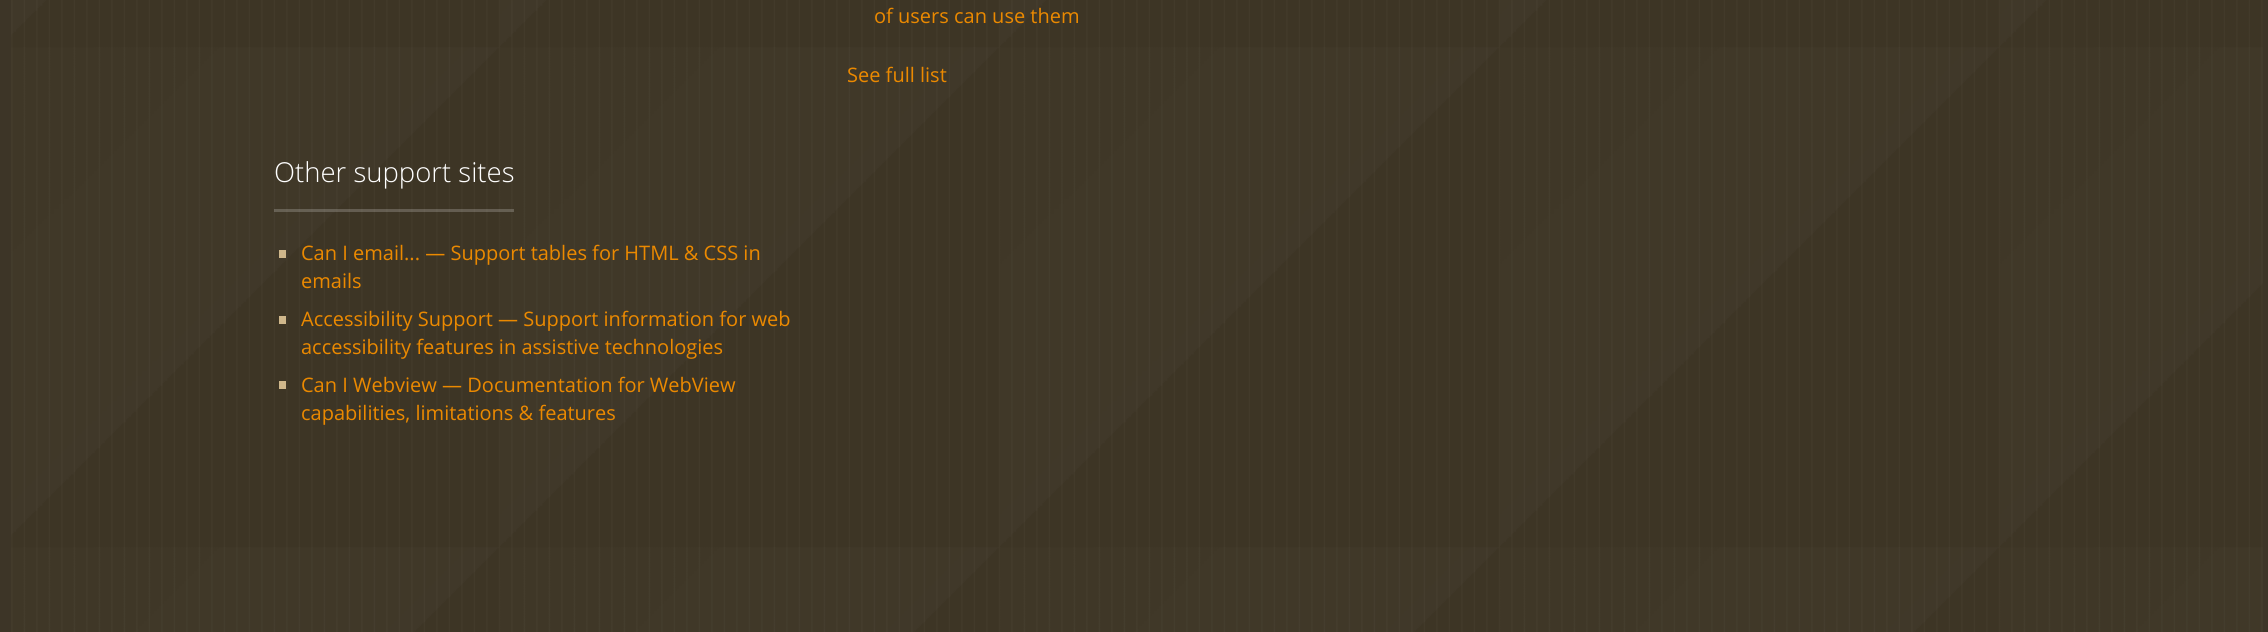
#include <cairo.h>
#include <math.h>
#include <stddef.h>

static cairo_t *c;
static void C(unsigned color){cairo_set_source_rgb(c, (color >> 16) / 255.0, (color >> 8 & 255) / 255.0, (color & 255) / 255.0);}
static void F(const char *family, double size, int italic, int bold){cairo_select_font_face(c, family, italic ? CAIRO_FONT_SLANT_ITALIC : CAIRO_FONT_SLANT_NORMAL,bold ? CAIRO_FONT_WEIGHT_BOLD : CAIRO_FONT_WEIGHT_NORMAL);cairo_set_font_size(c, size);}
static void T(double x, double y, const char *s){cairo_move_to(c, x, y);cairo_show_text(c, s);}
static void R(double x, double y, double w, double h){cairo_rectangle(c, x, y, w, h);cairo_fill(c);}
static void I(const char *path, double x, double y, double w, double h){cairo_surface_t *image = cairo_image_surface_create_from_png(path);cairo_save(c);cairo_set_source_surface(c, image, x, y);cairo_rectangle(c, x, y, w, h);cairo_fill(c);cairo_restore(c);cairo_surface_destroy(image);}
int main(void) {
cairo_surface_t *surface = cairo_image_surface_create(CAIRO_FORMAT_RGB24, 2268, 632);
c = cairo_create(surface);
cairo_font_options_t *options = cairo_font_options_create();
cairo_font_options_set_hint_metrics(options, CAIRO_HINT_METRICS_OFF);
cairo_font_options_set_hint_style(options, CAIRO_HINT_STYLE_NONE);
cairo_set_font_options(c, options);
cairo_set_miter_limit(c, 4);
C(0x3d3527);
cairo_paint(c);
I("1.png",11,0,2252,632);
F("Open Sans",20,0,0);
C(0xeb8900);
T(874,23,"of users can use them");
T(847,82,"See full list");
cairo_set_source_rgba(c,1,1,1,0.2);
R(274,209,240,3);
F("Open Sans Light",27.5,0,0);
C(0xffffff);
T(274,182,"Other support sites");
C(0xcfb78b);
R(279,250,7,8);
F("Open Sans",20,0,0);
C(0xeb8900);
T(301,260,"Can I email... — Support tables for HTML & CSS in");
T(301,288,"emails");
C(0xcfb78b);
R(279,316,7,8);
C(0xeb8900);
T(301,326,"Accessibility Support — Support information for web");
T(301,354,"accessibility features in assistive technologies");
C(0xcfb78b);
R(279,381,7,8);
C(0xeb8900);
T(301,392,"Can I Webview — Documentation for WebView");
T(301,420,"capabilities, limitations & features");
cairo_surface_write_to_png(surface, "o.png");
cairo_font_options_destroy(options);
cairo_destroy(c);
cairo_surface_destroy(surface);
return 0;
}
